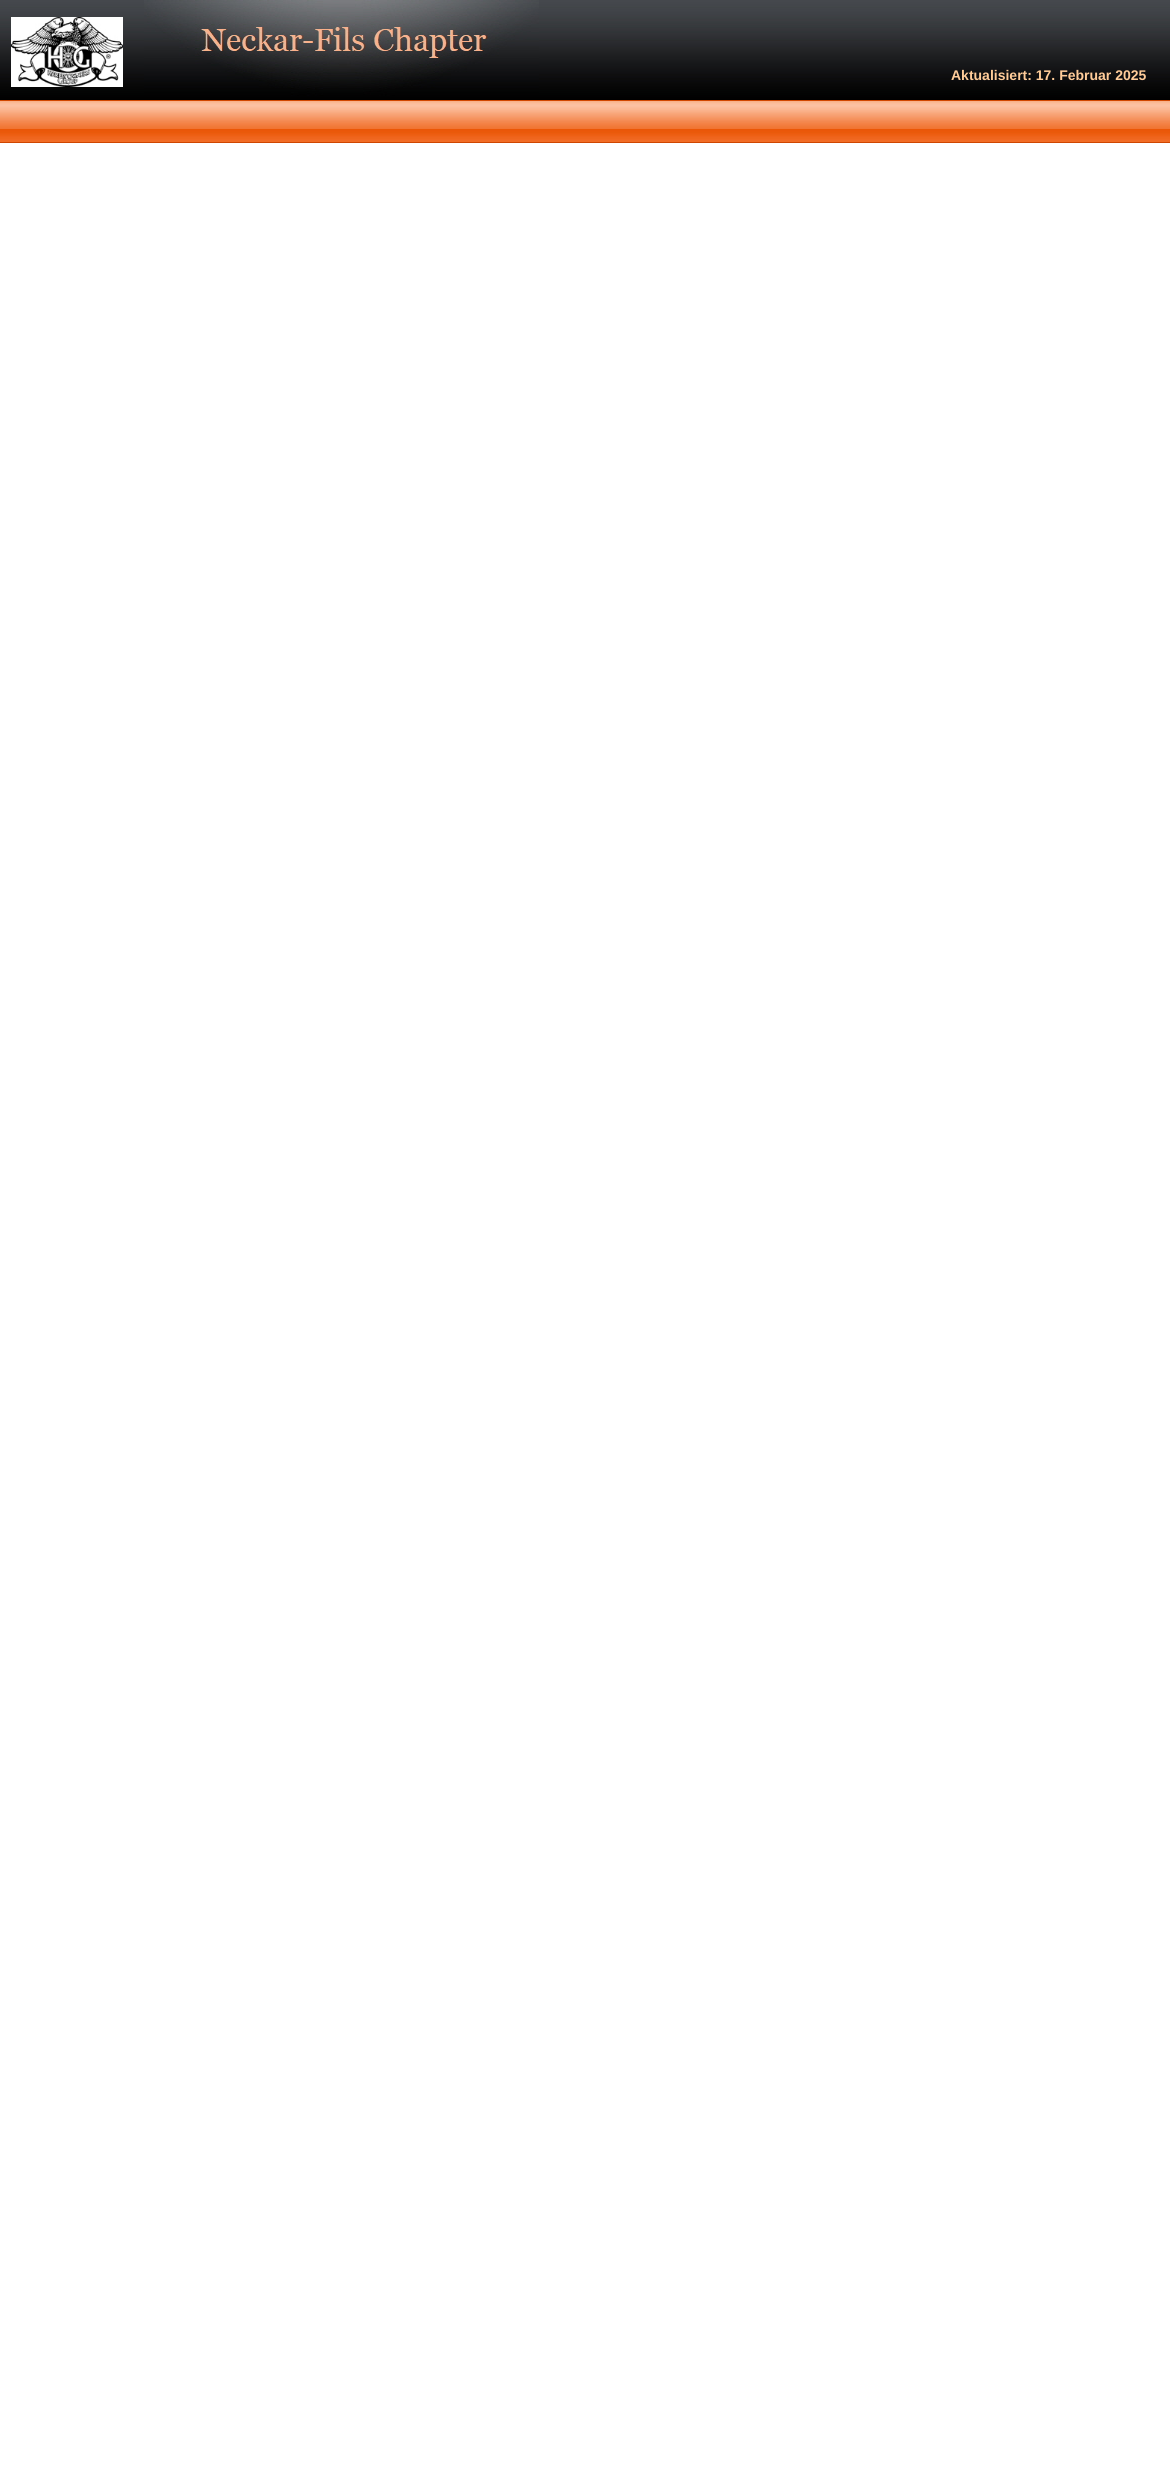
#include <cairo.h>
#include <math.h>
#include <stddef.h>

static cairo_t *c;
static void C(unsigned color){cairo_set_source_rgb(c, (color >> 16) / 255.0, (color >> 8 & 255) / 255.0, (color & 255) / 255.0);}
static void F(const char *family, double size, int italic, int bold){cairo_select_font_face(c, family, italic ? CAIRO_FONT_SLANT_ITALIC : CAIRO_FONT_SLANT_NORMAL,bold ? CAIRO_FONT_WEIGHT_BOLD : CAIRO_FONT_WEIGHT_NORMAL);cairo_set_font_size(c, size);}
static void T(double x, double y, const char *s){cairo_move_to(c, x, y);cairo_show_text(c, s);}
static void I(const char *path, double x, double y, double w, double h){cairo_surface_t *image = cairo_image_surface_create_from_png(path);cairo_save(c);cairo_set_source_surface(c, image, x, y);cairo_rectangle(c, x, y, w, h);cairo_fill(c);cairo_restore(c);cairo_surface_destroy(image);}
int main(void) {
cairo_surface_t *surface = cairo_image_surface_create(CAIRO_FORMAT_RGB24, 1170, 2474);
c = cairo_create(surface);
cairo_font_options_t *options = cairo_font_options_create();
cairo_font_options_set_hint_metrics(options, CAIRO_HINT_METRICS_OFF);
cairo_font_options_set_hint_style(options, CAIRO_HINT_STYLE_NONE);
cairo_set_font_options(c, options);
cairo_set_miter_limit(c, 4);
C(0xffffff);
cairo_paint(c);
I("1.png",0,0,1170,143);
I("2.png",11,17,112,70);
I("3.png",144,0,395,96);
F("Liberation Sans",14,0,1);
C(0xffcc99);
T(951,80,"Aktualisiert: 17. Februar 2025");
cairo_surface_write_to_png(surface, "o.png");
cairo_font_options_destroy(options);
cairo_destroy(c);
cairo_surface_destroy(surface);
return 0;
}
